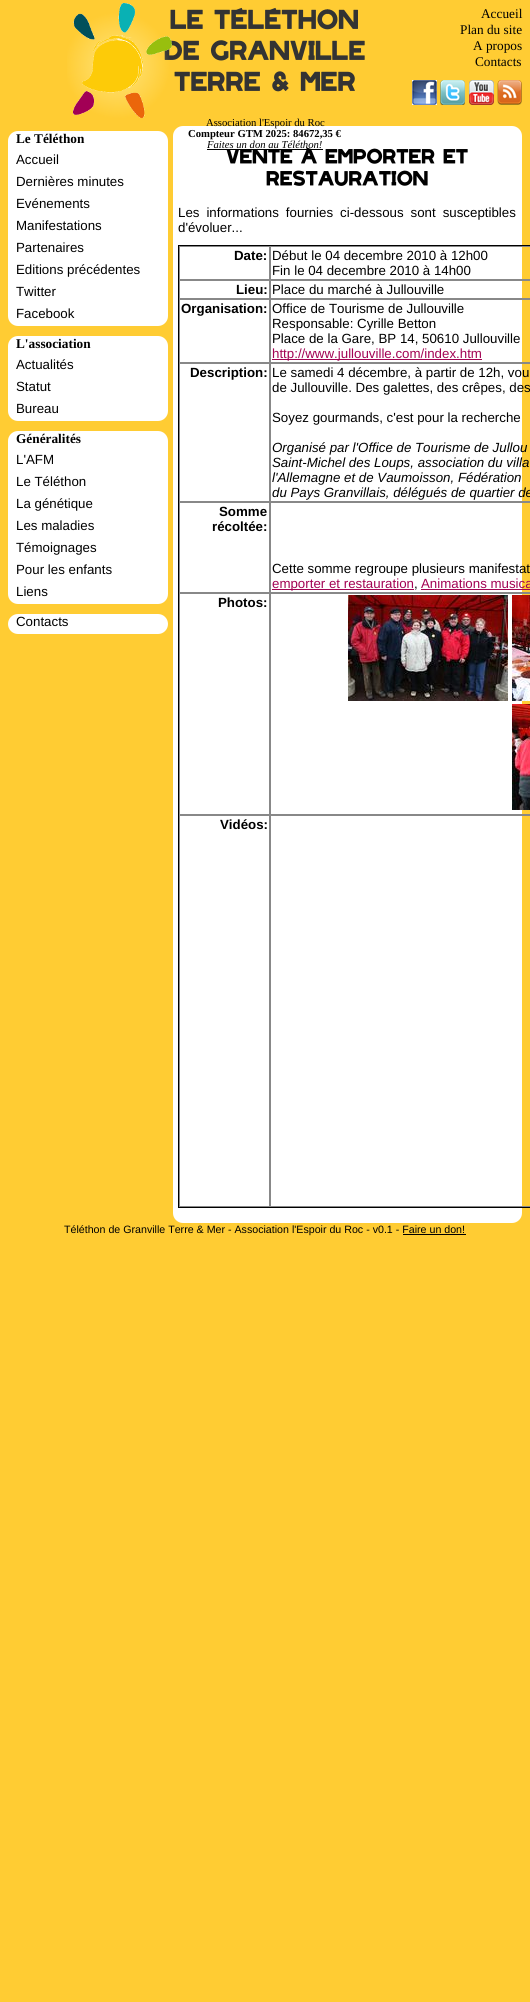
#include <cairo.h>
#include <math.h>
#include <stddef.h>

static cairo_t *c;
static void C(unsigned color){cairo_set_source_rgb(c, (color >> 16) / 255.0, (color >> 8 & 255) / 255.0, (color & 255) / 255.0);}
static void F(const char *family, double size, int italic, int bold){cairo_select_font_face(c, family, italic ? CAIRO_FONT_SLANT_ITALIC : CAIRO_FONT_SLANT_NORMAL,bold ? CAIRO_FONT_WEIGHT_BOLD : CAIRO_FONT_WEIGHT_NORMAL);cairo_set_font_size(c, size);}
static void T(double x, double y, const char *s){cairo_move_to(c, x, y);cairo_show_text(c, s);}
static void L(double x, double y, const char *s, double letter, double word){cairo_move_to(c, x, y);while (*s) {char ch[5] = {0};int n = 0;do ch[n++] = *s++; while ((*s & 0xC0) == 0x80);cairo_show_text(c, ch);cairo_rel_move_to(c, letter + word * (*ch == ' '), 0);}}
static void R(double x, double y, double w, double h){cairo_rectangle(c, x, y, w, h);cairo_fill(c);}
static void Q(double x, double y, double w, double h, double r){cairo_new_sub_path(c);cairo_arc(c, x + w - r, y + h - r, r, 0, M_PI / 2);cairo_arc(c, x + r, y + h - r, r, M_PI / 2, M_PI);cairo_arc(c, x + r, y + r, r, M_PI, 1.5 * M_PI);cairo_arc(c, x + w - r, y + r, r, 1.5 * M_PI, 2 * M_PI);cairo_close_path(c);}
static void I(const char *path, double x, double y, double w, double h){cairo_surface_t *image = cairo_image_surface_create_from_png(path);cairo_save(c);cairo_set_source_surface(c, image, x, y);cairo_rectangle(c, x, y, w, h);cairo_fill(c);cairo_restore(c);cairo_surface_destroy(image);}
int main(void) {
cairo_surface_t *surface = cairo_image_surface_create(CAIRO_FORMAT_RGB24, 530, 2002);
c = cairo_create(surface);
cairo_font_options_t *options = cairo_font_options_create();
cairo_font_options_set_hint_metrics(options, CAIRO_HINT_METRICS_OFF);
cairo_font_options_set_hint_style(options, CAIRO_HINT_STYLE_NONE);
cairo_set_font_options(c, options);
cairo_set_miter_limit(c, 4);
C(0xffcc33);
cairo_paint(c);
F("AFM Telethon",21.25,0,1);
C(0x333333);
T(170,31,"Le Téléthon");
T(164,62,"de Granville");
I("1.png",67,3,105,116);
T(174,93,"Terre & Mer");
C(0xffffff);
Q(173,126,349,1097,10);
cairo_fill(c);
F("Liberation Serif",10.65,0,0);
C(0x000000);
T(206,126,"Association l'Espoir du Roc");
F("Liberation Serif",10.65,0,1);
T(188,137,"Compteur GTM 2025: 84672,35 €");
F("Liberation Serif",10.65,1,0);
T(207,148,"Faites un don au Téléthon!");
R(207,149,116,1);
F("Liberation Serif",13.3,0,0);
T(481,18,"Accueil");
T(460,34,"Plan du site");
T(473,50,"A propos");
T(475,66,"Contacts");
I("2.png",412,80,25,25);
I("3.png",440,80,25,25);
I("4.png",469,80,25,25);
I("5.png",497,80,25,25);
C(0xffffff);
Q(8,131,160,195,10);
cairo_fill(c);
F("Liberation Serif",13.3,0,1);
C(0x000000);
T(16,143,"Le Téléthon");
F("Liberation Sans",13.3,0,0);
T(16,164,"Accueil");
T(16,186,"Dernières minutes");
T(16,208,"Evénements");
T(16,230,"Manifestations");
T(16,252,"Partenaires");
T(16,274,"Editions précédentes");
T(16,296,"Twitter");
T(16,318,"Facebook");
C(0xffffff);
Q(8,336,160,85,10);
cairo_fill(c);
F("Liberation Serif",13.3,0,1);
C(0x000000);
T(16,348,"L'association");
F("Liberation Sans",13.3,0,0);
T(16,369,"Actualités");
T(16,391,"Statut");
T(16,413,"Bureau");
C(0xffffff);
Q(8,431,160,173,10);
cairo_fill(c);
F("Liberation Serif",13.3,0,1);
C(0x000000);
T(16,443,"Généralités");
F("Liberation Sans",13.3,0,0);
T(16,464,"L'AFM");
T(16,486,"Le Téléthon");
T(16,508,"La génétique");
T(16,530,"Les maladies");
T(16,552,"Témoignages");
T(16,574,"Pour les enfants");
T(16,596,"Liens");
C(0xffffff);
Q(8,614,160,20,10);
cairo_fill(c);
C(0x000000);
T(16,626,"Contacts");
F("AFM Telethon",16,0,1);
T(226,165,"Vente à emporter et");
T(266,187,"restauration");
F("Liberation Sans",13.3,0,0);
L(178,217,"Les informations fournies ci-dessous sont susceptibles",0,3.25);
T(178,232,"d'évoluer...");
cairo_rectangle(c,178.5,245.5,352,962);
cairo_set_line_width(c,1);
cairo_stroke(c);
cairo_rectangle(c,179.5,246.5,90,33);
C(0x888888);
cairo_stroke(c);
F("Liberation Sans",13.3,0,1);
C(0x000000);
T(234,260,"Date:");
cairo_rectangle(c,270.5,246.5,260,33);
C(0x888888);
cairo_stroke(c);
F("Liberation Sans",13.3,0,0);
C(0x000000);
T(272,260,"Début le 04 decembre 2010 à 12h00");
T(272,275,"Fin le 04 decembre 2010 à 14h00");
cairo_rectangle(c,179.5,280.5,90,18);
C(0x888888);
cairo_stroke(c);
F("Liberation Sans",13.3,0,1);
C(0x000000);
T(236,294,"Lieu:");
cairo_rectangle(c,270.5,280.5,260,18);
C(0x888888);
cairo_stroke(c);
F("Liberation Sans",13.3,0,0);
C(0x000000);
T(272,294,"Place du marché à Jullouville");
cairo_rectangle(c,179.5,299.5,90,63);
C(0x888888);
cairo_stroke(c);
F("Liberation Sans",13.3,0,1);
C(0x000000);
T(181,313,"Organisation:");
cairo_rectangle(c,270.5,299.5,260,63);
C(0x888888);
cairo_stroke(c);
F("Liberation Sans",13.3,0,0);
C(0x000000);
T(272,313,"Office de Tourisme de Jullouville");
T(272,328,"Responsable: Cyrille Betton");
T(272,343,"Place de la Gare, BP 14, 50610 Jullouville");
C(0xa20353);
R(272,359,210,1);
T(272,358,"http://www.jullouville.com/index.htm");
cairo_rectangle(c,179.5,363.5,90,138);
C(0x888888);
cairo_stroke(c);
F("Liberation Sans",13.3,0,1);
C(0x000000);
T(190,377,"Description:");
cairo_rectangle(c,270.5,363.5,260,138);
C(0x888888);
cairo_stroke(c);
F("Liberation Sans",13.3,0,0);
C(0x000000);
T(272,377,"Le samedi 4 décembre, à partir de 12h, vou");
T(272,392,"de Jullouville. Des galettes, des crêpes, des");
T(272,422,"Soyez gourmands, c'est pour la recherche");
F("Liberation Sans",13.3,1,0);
T(272,452,"Organisé par l'Office de Tourisme de Jullou");
T(272,467,"Saint-Michel des Loups, association du villa");
T(272,482,"l'Allemagne et de Vaumoisson, Fédération");
T(272,497,"du Pays Granvillais, délégués de quartier de");
cairo_rectangle(c,179.5,502.5,90,90);
C(0x888888);
cairo_stroke(c);
F("Liberation Sans",13.3,0,1);
C(0x000000);
T(219,516,"Somme");
T(212,531,"récoltée:");
cairo_rectangle(c,270.5,502.5,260,90);
C(0x888888);
cairo_stroke(c);
F("Liberation Sans",13.3,0,0);
C(0x000000);
T(272,573,"Cette somme regroupe plusieurs manifestat");
C(0xa20353);
R(272,589,142,1);
T(272,588,"emporter et restauration");
C(0x000000);
T(414,588,",");
C(0xa20353);
T(421,588,"Animations musica");
R(421,589,109,1);
cairo_rectangle(c,179.5,593.5,90,221);
C(0x888888);
cairo_stroke(c);
F("Liberation Sans",13.3,0,1);
C(0x000000);
T(218,607,"Photos:");
cairo_rectangle(c,270.5,593.5,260,221);
C(0x888888);
cairo_stroke(c);
I("6.png",348,595,160,106);
I("7.png",512,595,18,106);
I("8.png",512,704,18,106);
cairo_rectangle(c,179.5,815.5,90,391);
cairo_stroke(c);
C(0x000000);
T(220,829,"Vidéos:");
cairo_rectangle(c,270.5,815.5,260,391);
C(0x888888);
cairo_stroke(c);
F("Liberation Sans",10.65,0,0);
C(0x000000);
T(64,1233,"Téléthon de Granville Terre & Mer - Association l'Espoir du Roc - v0.1 - Faire un don!");
R(403,1234,63,1);
cairo_surface_write_to_png(surface, "o.png");
cairo_font_options_destroy(options);
cairo_destroy(c);
cairo_surface_destroy(surface);
return 0;
}
